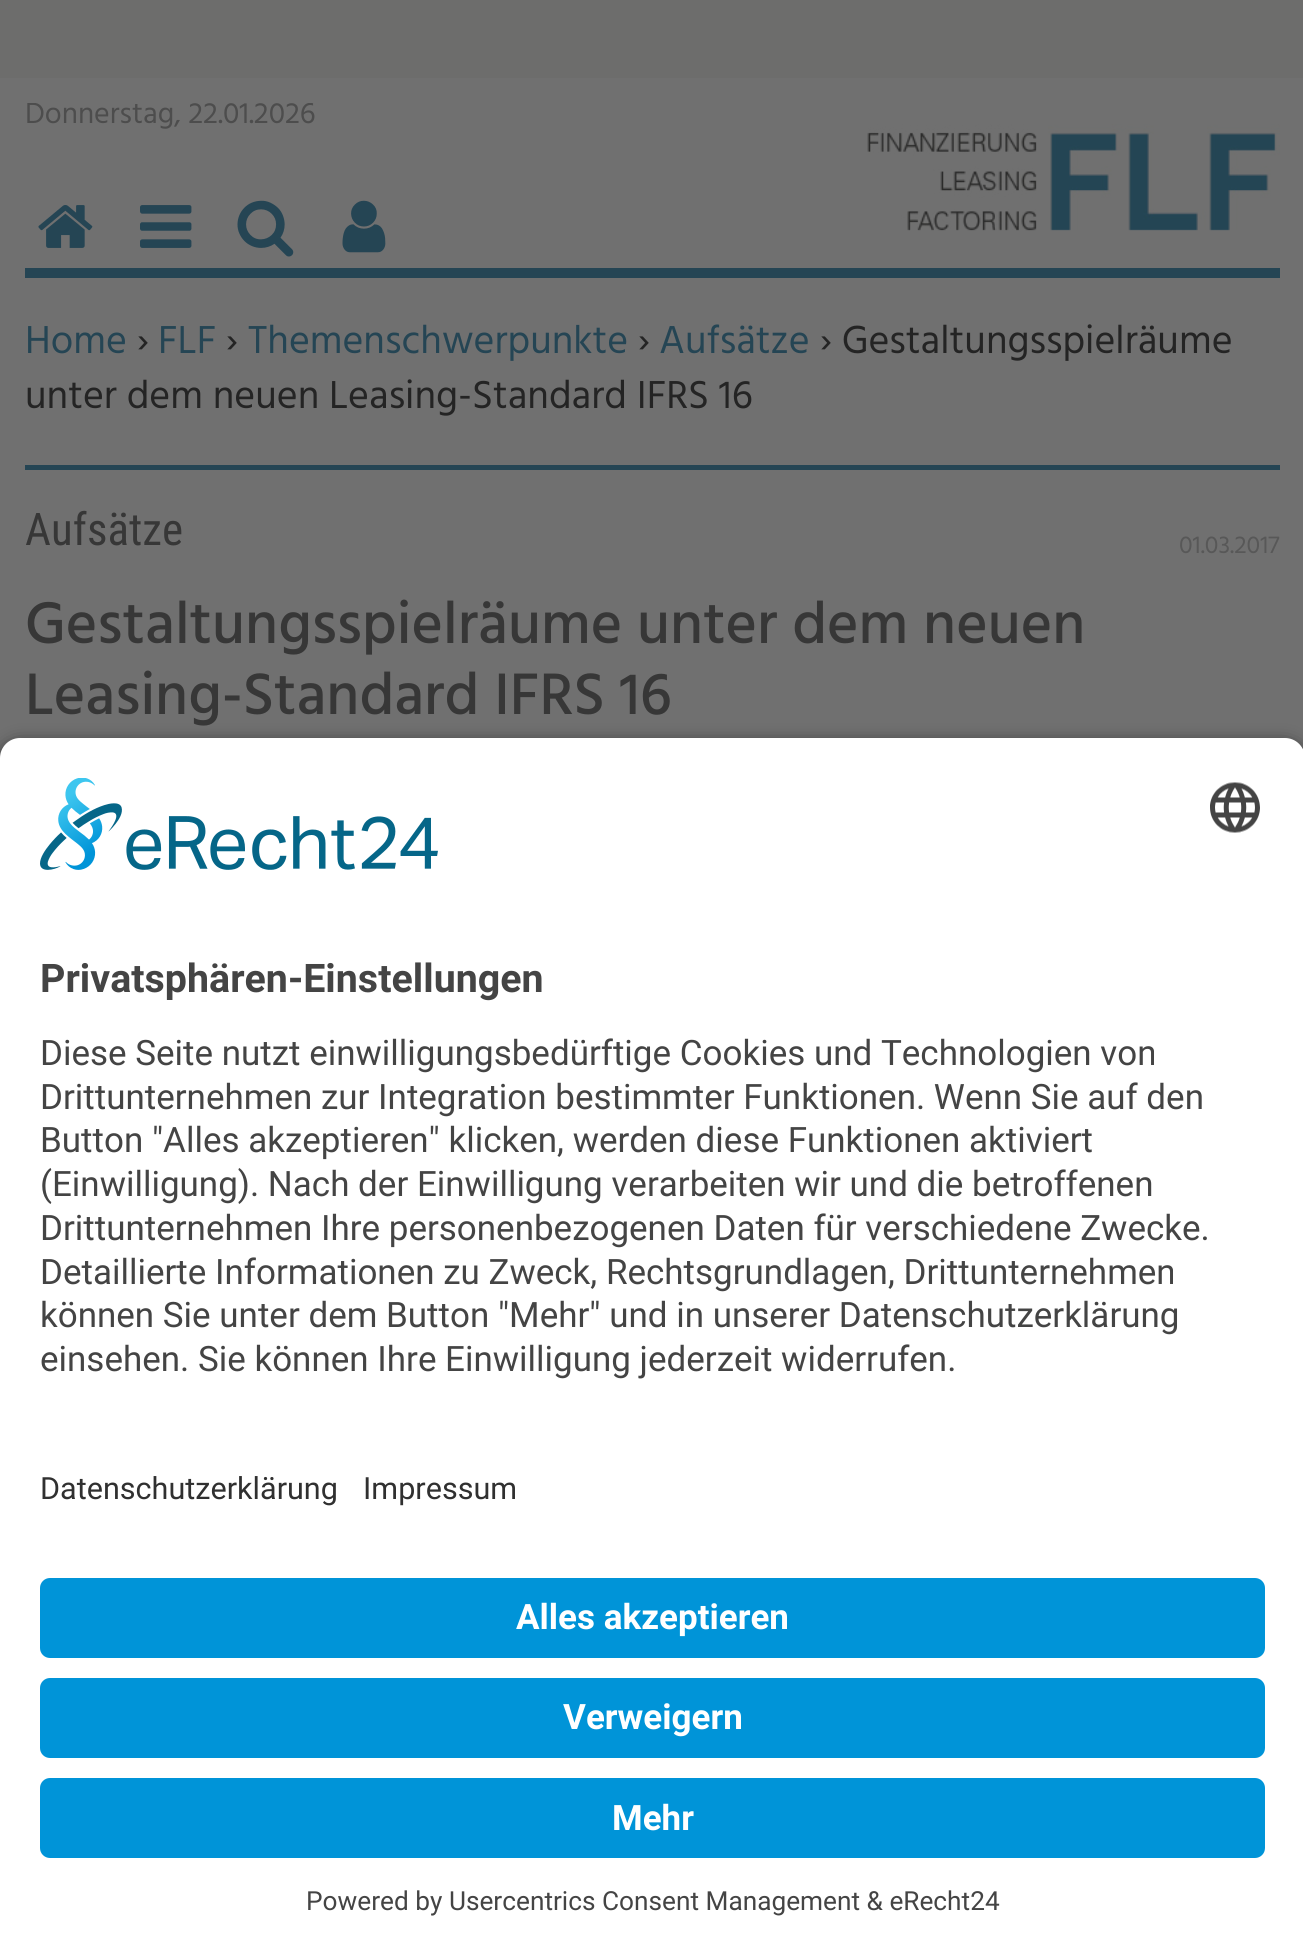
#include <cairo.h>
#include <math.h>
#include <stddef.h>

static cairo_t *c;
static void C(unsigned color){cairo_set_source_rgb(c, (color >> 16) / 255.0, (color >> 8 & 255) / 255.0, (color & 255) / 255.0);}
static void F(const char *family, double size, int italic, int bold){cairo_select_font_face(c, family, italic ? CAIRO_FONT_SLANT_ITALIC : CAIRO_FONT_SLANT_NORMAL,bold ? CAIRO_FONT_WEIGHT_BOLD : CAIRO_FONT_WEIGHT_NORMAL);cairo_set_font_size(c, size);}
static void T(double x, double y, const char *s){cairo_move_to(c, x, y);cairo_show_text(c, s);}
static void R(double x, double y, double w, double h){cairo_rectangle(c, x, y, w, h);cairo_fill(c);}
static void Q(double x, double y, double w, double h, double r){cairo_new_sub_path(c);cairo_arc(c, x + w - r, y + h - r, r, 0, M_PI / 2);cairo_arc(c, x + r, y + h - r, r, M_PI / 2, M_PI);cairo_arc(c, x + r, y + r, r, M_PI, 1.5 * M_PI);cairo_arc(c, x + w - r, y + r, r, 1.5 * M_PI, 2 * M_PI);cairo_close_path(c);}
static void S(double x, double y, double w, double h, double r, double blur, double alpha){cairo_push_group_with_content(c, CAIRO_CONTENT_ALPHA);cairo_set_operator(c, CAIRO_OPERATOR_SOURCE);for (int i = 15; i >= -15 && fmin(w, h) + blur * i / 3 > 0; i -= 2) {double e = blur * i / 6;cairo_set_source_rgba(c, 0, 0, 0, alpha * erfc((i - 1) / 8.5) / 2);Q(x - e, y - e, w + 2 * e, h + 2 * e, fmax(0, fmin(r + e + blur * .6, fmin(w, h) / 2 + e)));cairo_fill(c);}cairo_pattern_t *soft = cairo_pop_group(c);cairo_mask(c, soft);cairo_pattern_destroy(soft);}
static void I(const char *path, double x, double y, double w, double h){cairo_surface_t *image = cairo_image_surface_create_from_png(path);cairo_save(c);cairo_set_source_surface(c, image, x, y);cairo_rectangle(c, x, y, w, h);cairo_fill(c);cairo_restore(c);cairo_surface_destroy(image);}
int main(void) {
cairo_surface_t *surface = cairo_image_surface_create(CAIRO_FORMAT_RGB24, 1303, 1957);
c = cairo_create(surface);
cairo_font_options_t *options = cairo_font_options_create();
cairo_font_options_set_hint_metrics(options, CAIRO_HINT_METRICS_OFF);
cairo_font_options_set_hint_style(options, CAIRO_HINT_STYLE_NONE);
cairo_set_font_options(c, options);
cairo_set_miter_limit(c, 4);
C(0x6d6d6c);
cairo_paint(c);
C(0x707070);
R(0,78,1303,680);
cairo_save(c);
cairo_rectangle(c,25,103,1255,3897);
cairo_clip(c);
F("Hind",30,0,0);
C(0x4d4d4d);
T(25,123,"Donnerstag, 22.01.2026");
cairo_restore(c);
I("1.png",867,124,413,107);
C(0x254554);
R(25,268,1255,10);
I("2.png",38,205,55,43);
I("3.png",140,205,52,43);
I("4.png",237,200,57,57);
I("5.png",342,200,44,53);
F("Hind",40,0,0);
T(25,353,"Home");
C(0x242424);
T(137,353,"›");
C(0x254554);
T(158,353,"FLF");
C(0x242424);
T(226,353,"›");
C(0x254554);
T(248,353,"Themenschwerpunkte");
C(0x242424);
T(638,353,"›");
C(0x254554);
T(659,353,"Aufsätze");
C(0x242424);
T(820,353,"› Gestaltungsspielräume");
T(25,408,"unter dem neuen Leasing-Standard IFRS 16");
C(0x254554);
R(25,465,1255,5);
F("Roboto Condensed",45,0,0);
C(0x373737);
T(25,545,"Aufsätze");
F("Hind",25,0,0);
C(0x585858);
T(1179,553,"01.03.2017");
F("Hind Medium",60,0,0);
C(0x373737);
T(25,643,"Gestaltungsspielräume unter dem neuen");
T(25,714,"Leasing-Standard IFRS 16");
C(0x000000);
S(0,745,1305,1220,20,9,.8);
C(0xffffff);
cairo_new_path(c);
cairo_move_to(c,20,738);
cairo_line_to(c,1285,738);
cairo_curve_to(c,1296,738,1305,747,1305,758);
cairo_line_to(c,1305,1433);
cairo_line_to(c,0,1433);
cairo_line_to(c,0,758);
cairo_curve_to(c,0,747,9,738,20,738);
cairo_close_path(c);
cairo_fill(c);
I("6.png",40,778,398,92);
I("7.png",1210,782,50,51);
F("Roboto",39.4,0,1);
C(0x444444);
T(40,992,"Privatsphären-Einstellungen");
F("Roboto",35,0,0);
T(40,1065,"Diese Seite nutzt einwilligungsbedürftige Cookies und Technologien von");
T(40,1109,"Drittunternehmen zur Integration bestimmter Funktionen. Wenn Sie auf den");
T(40,1152,"Button \"Alles akzeptieren\" klicken, werden diese Funktionen aktiviert");
T(40,1196,"(Einwilligung). Nach der Einwilligung verarbeiten wir und die betroffenen");
T(40,1240,"Drittunternehmen Ihre personenbezogenen Daten für verschiedene Zwecke.");
T(40,1284,"Detaillierte Informationen zu Zweck, Rechtsgrundlagen, Drittunternehmen");
T(40,1327,"können Sie unter dem Button \"Mehr\" und in unserer Datenschutzerklärung");
T(40,1371,"einsehen. Sie können Ihre Einwilligung jederzeit widerrufen.");
C(0xffffff);
R(0,1433,1303,524);
F("Roboto",30.6,0,0);
C(0x303030);
T(40,1499,"Datenschutzerklärung");
T(363,1499,"Impressum");
C(0x0094d8);
Q(40,1578,1225,80,10);
cairo_fill(c);
F("Roboto",35,0,1);
C(0xffffff);
T(516,1629,"Alles akzeptieren");
C(0x0094d8);
Q(40,1678,1225,80,10);
cairo_fill(c);
C(0xffffff);
T(563,1729,"Verweigern");
C(0x0094d8);
Q(40,1778,1225,80,10);
cairo_fill(c);
C(0xffffff);
T(612,1830,"Mehr");
F("Roboto",26.25,0,0);
C(0x444444);
T(306,1910,"Powered by Usercentrics Consent Management & eRecht24");
cairo_surface_write_to_png(surface, "o.png");
cairo_font_options_destroy(options);
cairo_destroy(c);
cairo_surface_destroy(surface);
return 0;
}
